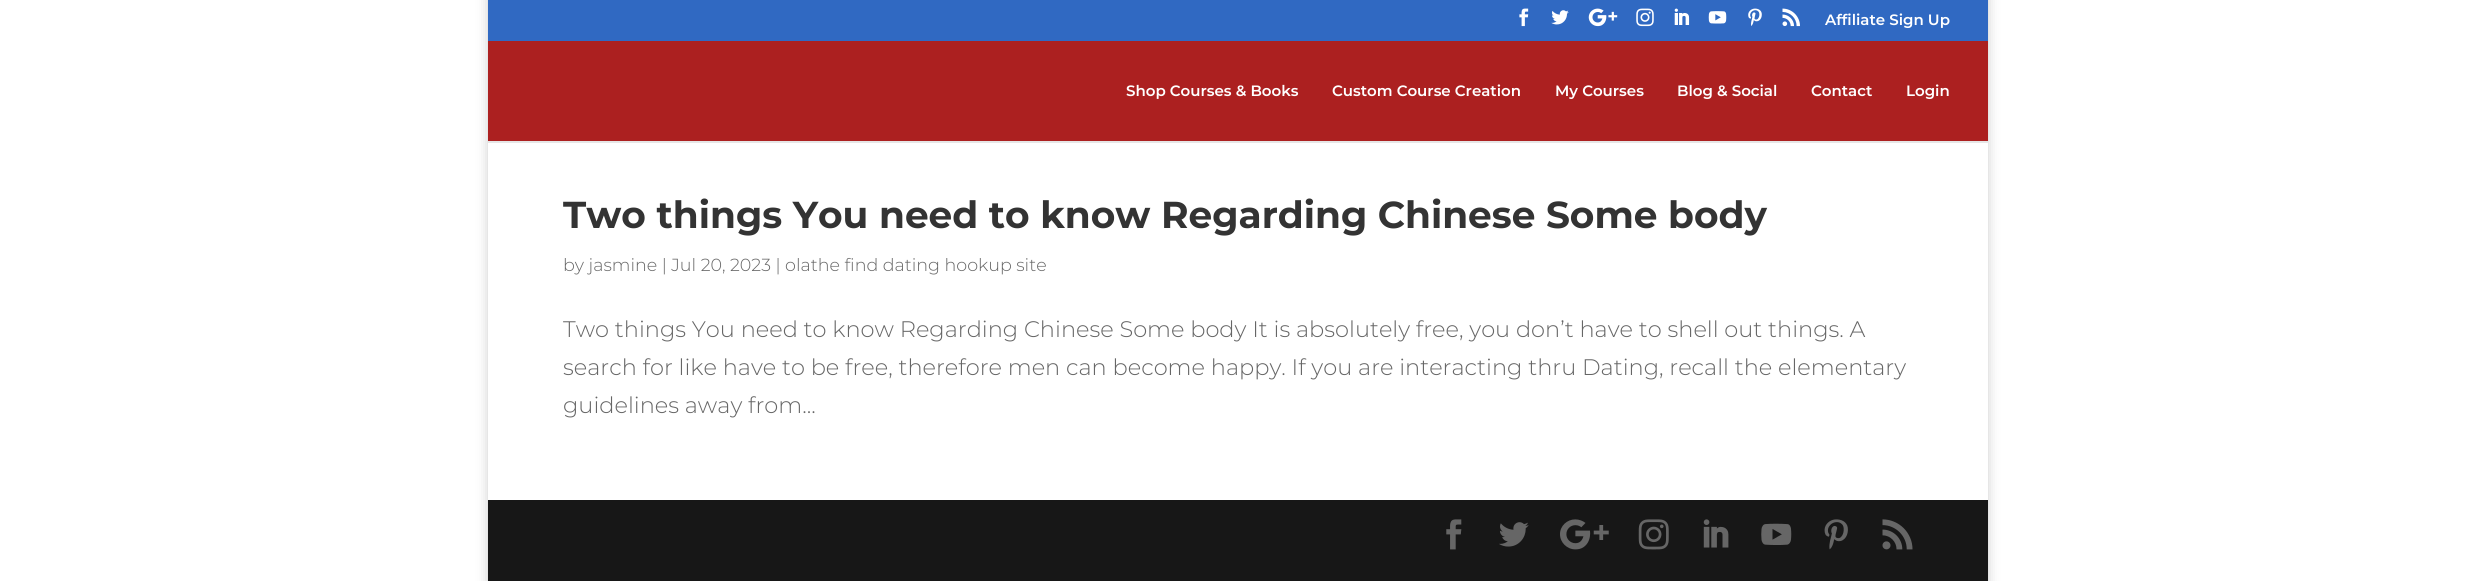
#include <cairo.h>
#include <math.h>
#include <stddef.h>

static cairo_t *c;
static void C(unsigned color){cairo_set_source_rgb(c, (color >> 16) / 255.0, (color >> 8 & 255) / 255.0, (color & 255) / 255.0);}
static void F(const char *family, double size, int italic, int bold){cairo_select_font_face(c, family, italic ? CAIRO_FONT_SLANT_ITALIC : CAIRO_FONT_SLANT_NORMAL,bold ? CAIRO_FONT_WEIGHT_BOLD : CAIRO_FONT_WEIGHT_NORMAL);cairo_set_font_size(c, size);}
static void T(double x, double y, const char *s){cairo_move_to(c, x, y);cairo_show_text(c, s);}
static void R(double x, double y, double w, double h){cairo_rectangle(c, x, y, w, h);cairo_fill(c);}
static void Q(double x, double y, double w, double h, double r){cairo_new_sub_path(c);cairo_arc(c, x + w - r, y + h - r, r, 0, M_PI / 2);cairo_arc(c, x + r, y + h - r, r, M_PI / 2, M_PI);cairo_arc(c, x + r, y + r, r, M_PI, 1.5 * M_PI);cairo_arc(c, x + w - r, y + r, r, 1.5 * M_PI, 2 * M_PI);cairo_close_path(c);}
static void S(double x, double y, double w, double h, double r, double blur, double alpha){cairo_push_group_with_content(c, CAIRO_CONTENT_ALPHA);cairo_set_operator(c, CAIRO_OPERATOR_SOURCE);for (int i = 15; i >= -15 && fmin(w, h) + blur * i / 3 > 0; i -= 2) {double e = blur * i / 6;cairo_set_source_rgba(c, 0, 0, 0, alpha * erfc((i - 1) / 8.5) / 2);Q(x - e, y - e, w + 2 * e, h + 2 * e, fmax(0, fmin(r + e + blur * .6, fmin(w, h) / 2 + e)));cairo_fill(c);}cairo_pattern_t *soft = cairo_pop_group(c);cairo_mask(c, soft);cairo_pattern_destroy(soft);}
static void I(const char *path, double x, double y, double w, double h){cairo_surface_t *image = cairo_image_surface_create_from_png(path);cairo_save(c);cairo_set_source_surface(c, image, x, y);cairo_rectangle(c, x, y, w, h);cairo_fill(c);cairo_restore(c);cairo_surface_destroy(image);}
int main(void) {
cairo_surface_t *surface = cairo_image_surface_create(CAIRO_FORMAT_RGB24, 2474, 581);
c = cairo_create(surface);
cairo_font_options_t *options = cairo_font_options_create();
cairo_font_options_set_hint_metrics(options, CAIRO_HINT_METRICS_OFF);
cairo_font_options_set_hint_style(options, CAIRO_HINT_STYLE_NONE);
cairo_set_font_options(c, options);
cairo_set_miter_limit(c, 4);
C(0xffffff);
cairo_paint(c);
C(0x000000);
S(488,-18,1500,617,0,6,.2);
C(0x3069c2);
R(488,0,1500,41);
I("1.png",1519,8,10,19);
I("2.png",1551,10,18,15);
I("3.png",1588,8,30,19);
I("4.png",1636,8,18,19);
I("5.png",1674,8,16,17);
I("6.png",1708,11,19,13);
I("7.png",1748,8,14,18);
I("8.png",1782,8,18,19);
F("Montserrat SemiBold",15,0,0);
C(0xffffff);
T(1825,25,"Affiliate Sign Up");
C(0xe6e6e6);
cairo_new_path(c);
cairo_move_to(c,488,141);
cairo_line_to(c,488,143);
cairo_line_to(c,1988,143);
cairo_line_to(c,1988,43);
cairo_line_to(c,1988,141);
cairo_close_path(c);
cairo_fill(c);
C(0xac2020);
R(488,41,1500,100);
C(0xffffff);
T(1126,96,"Shop Courses & Books");
T(1332,96,"Custom Course Creation");
T(1555,96,"My Courses");
T(1677,96,"Blog & Social");
T(1811,96,"Contact");
T(1906,96,"Login");
R(488,143,1500,357);
F("Montserrat",37.5,0,1);
C(0x333333);
T(563,228,"Two things You need to know Regarding Chinese Some body");
F("Montserrat Light",17.5,0,0);
C(0x666666);
T(563,271,"by jasmine | Jul 20, 2023 | olathe find dating hookup site");
F("Montserrat Light",22.5,0,0);
T(563,337,"Two things You need to know Regarding Chinese Some body It is absolutely free, you don’t have to shell out things. A");
T(563,375,"search for like have to be free, therefore men can become happy. If you are interacting thru Dating, recall the elementary");
T(563,413,"guidelines away from...");
C(0x171717);
R(488,500,1500,81);
I("9.png",1446,519,16,31);
I("10.png",1499,522,30,25);
I("11.png",1560,519,49,31);
I("12.png",1638,519,31,31);
I("13.png",1703,519,26,29);
I("14.png",1761,523,31,22);
I("15.png",1824,519,24,31);
I("16.png",1882,519,31,31);
cairo_surface_write_to_png(surface, "o.png");
cairo_font_options_destroy(options);
cairo_destroy(c);
cairo_surface_destroy(surface);
return 0;
}
